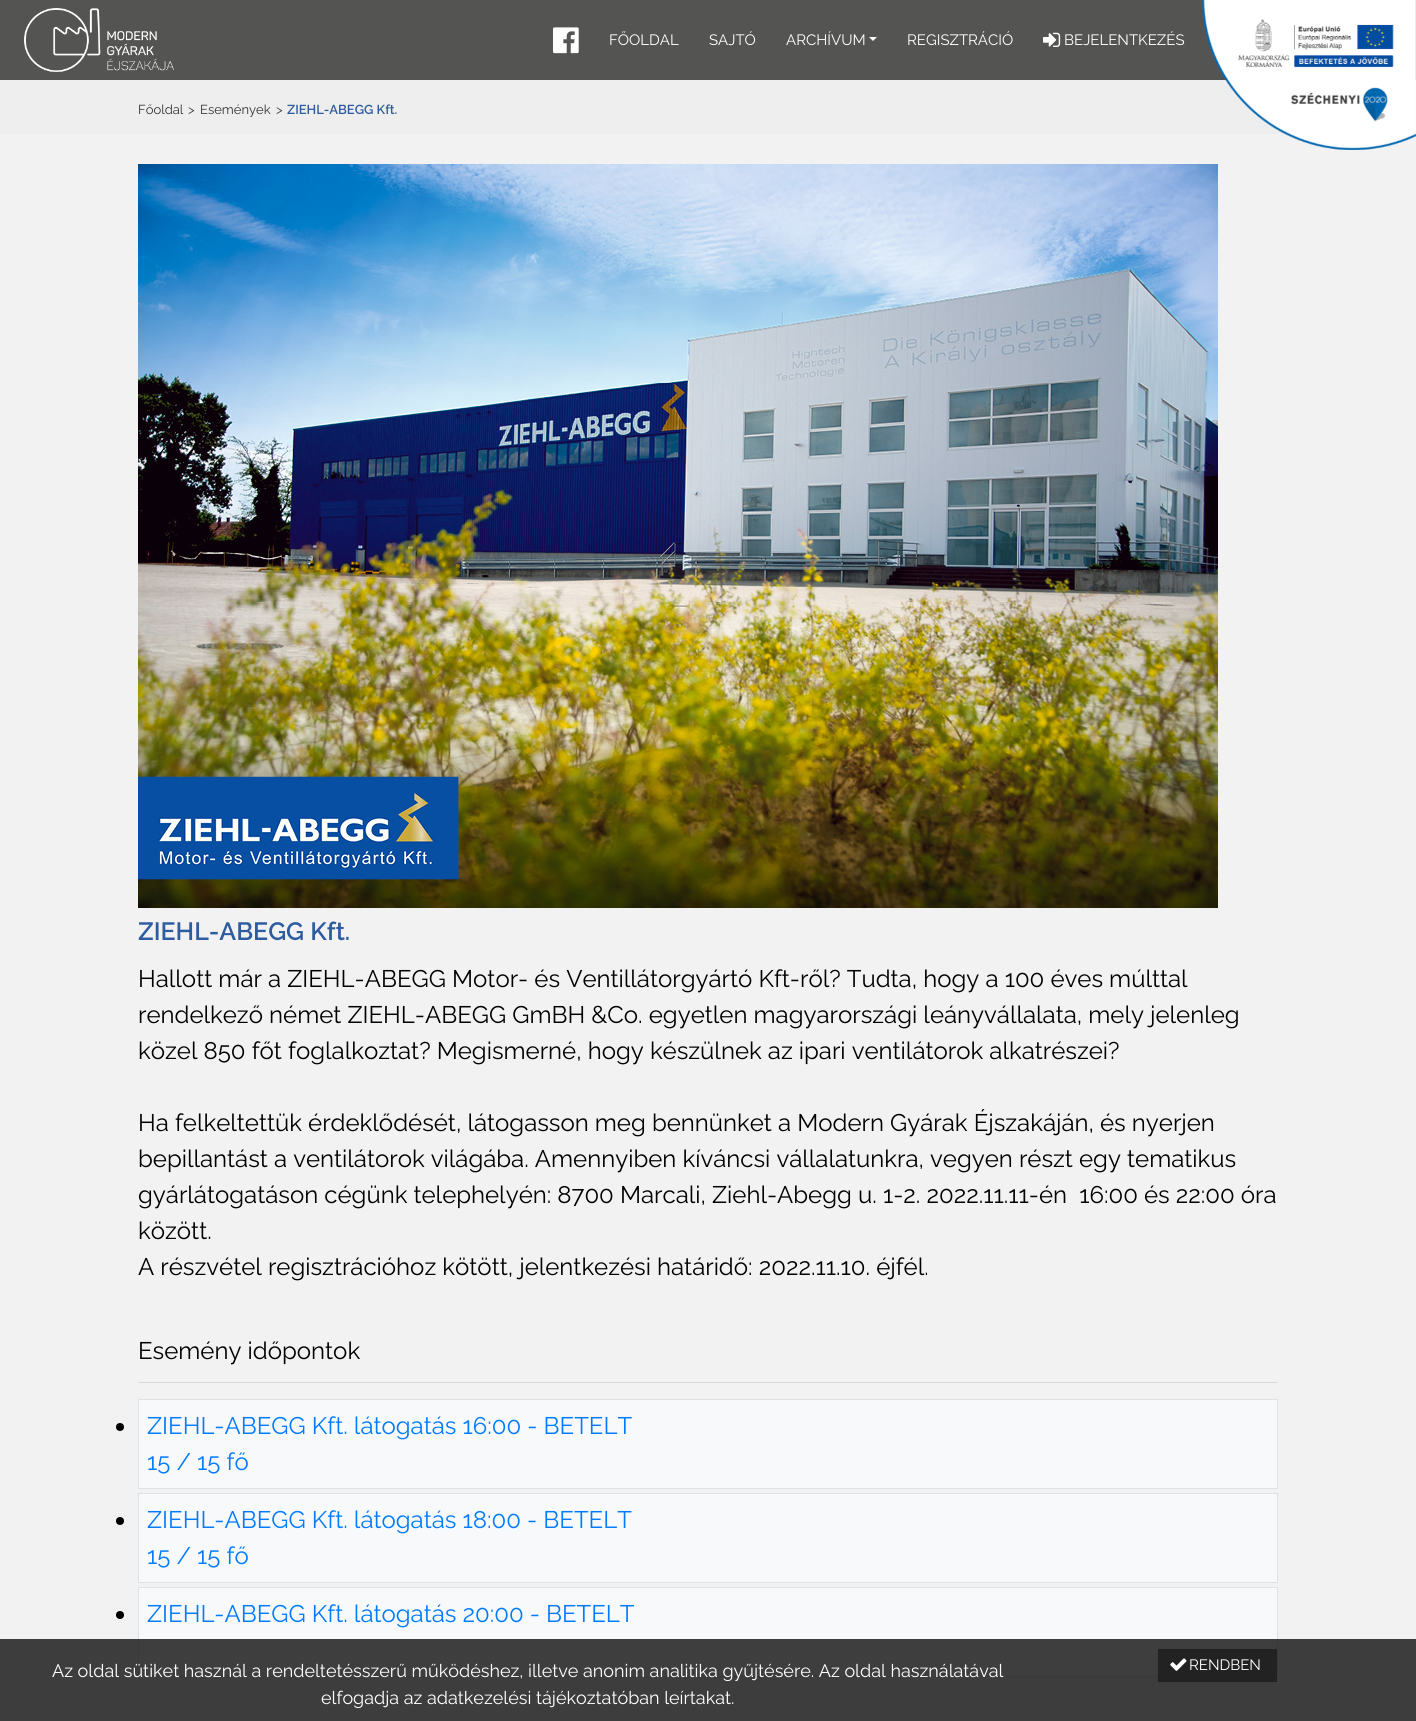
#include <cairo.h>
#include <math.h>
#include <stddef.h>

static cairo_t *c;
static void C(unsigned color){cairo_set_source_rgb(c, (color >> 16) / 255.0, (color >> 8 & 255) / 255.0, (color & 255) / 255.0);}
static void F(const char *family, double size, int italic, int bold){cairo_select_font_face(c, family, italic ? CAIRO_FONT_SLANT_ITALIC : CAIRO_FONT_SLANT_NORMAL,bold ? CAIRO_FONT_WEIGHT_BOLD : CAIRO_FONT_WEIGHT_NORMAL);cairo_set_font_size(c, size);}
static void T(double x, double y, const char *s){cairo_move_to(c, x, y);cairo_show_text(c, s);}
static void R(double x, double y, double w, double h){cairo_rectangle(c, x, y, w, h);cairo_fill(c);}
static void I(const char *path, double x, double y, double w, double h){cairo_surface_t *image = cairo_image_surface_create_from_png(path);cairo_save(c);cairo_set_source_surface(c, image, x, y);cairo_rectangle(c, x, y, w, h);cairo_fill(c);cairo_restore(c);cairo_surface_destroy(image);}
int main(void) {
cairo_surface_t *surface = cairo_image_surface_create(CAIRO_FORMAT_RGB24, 1416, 1721);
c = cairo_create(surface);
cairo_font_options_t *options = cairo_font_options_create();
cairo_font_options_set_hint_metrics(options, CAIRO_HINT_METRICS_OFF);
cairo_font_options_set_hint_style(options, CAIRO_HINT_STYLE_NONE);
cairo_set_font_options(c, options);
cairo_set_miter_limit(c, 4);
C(0xf2f2f2);
cairo_paint(c);
C(0x545453);
R(0,0,1416,80);
I("1.png",24,8,150,64);
I("2.png",553,27,26,27);
F("Raleway",15,0,0);
C(0xffffff);
T(609,45,"FŐOLDAL");
T(709,45,"SAJTÓ");
T(786,45,"ARCHÍVUM");
cairo_new_path(c);
cairo_move_to(c,869,37);
cairo_line_to(c,877,37);
cairo_line_to(c,873,41);
cairo_close_path(c);
cairo_fill(c);
T(907,45,"REGISZTRÁCIÓ");
I("3.png",1043,32,18,15);
T(1064,45,"BEJELENTKEZÉS");
C(0xeeeeee);
R(0,80,1416,54);
I("4.png",1201,0,215,150);
F("Raleway",13,0,0);
C(0x333333);
T(138,114,"Főoldal");
C(0x3c3c3c);
T(188,114,">");
C(0x333333);
T(200,114,"Események");
C(0x3c3c3c);
T(276,114,">");
F("Raleway SemiBold",13,0,0);
C(0x2e5ca1);
T(287,114,"ZIEHL-ABEGG Kft.");
I("5.png",138,164,1080,744);
F("Raleway SemiBold",25,0,0);
T(138,940,"ZIEHL-ABEGG Kft.");
F("Raleway",24,0,0);
C(0x000000);
T(138,987,"Hallott már a ZIEHL-ABEGG Motor- és Ventillátorgyártó Kft-ről? Tudta, hogy a 100 éves múlttal");
T(138,1023,"rendelkező német ZIEHL-ABEGG GmBH &Co. egyetlen magyarországi leányvállalata, mely jelenleg");
T(138,1059,"közel 850 főt foglalkoztat? Megismerné, hogy készülnek az ipari ventilátorok alkatrészei?");
T(138,1131,"Ha felkeltettük érdeklődését, látogasson meg bennünket a Modern Gyárak Éjszakáján, és nyerjen");
T(138,1167,"bepillantást a ventilátorok világába. Amennyiben kíváncsi vállalatunkra, vegyen részt egy tematikus");
T(138,1203,"gyárlátogatáson cégünk telephelyén: 8700 Marcali, Ziehl-Abegg u. 1-2. 2022.11.11-én  16:00 és 22:00 óra");
T(138,1239,"között.");
T(138,1275,"A részvétel regisztrációhoz kötött, jelentkezési határidő: 2022.11.10. éjfél.");
T(138,1359,"Esemény időpontok");
C(0xdadada);
R(138,1382,1140,1);
C(0x000000);
cairo_new_path(c);
cairo_arc(c,120,1427,4,0,2 * M_PI);
cairo_fill(c);
C(0xf8f9fa);
cairo_rectangle(c,138.5,1399.5,1139,89);
cairo_fill_preserve(c);
C(0xdee2e6);
cairo_set_line_width(c,1);
cairo_stroke(c);
C(0x007bff);
T(147,1434,"ZIEHL-ABEGG Kft. látogatás 16:00 - BETELT");
T(147,1470,"15 / 15 fő");
C(0x000000);
cairo_new_path(c);
cairo_arc(c,120,1521,4,0,2 * M_PI);
cairo_fill(c);
C(0xf8f9fa);
cairo_rectangle(c,138.5,1493.5,1139,89);
cairo_fill_preserve(c);
C(0xdee2e6);
cairo_stroke(c);
C(0x007bff);
T(147,1528,"ZIEHL-ABEGG Kft. látogatás 18:00 - BETELT");
T(147,1564,"15 / 15 fő");
C(0x000000);
cairo_new_path(c);
cairo_arc(c,120,1615,4,0,2 * M_PI);
cairo_fill(c);
C(0xf8f9fa);
cairo_rectangle(c,138.5,1587.5,1139,89);
cairo_fill_preserve(c);
C(0xdee2e6);
cairo_stroke(c);
C(0x007bff);
T(147,1622,"ZIEHL-ABEGG Kft. látogatás 20:00 - BETELT");
cairo_set_source_rgba(c,0,0,0,0.75);
R(0,1639,1416,82);
F("Raleway",18,0,0);
C(0xffffff);
T(52,1677,"Az oldal sütiket használ a rendeltetésszerű működéshez, illetve anonim analitika gyűjtésére. Az oldal használatával");
T(321,1704,"elfogadja az adatkezelési tájékoztatóban leírtakat.");
C(0x222222);
R(1158,1649,119,33);
I("6.png",1170,1658,17,13);
F("Raleway",15,0,0);
C(0xffffff);
T(1189,1670,"RENDBEN");
cairo_surface_write_to_png(surface, "o.png");
cairo_font_options_destroy(options);
cairo_destroy(c);
cairo_surface_destroy(surface);
return 0;
}
